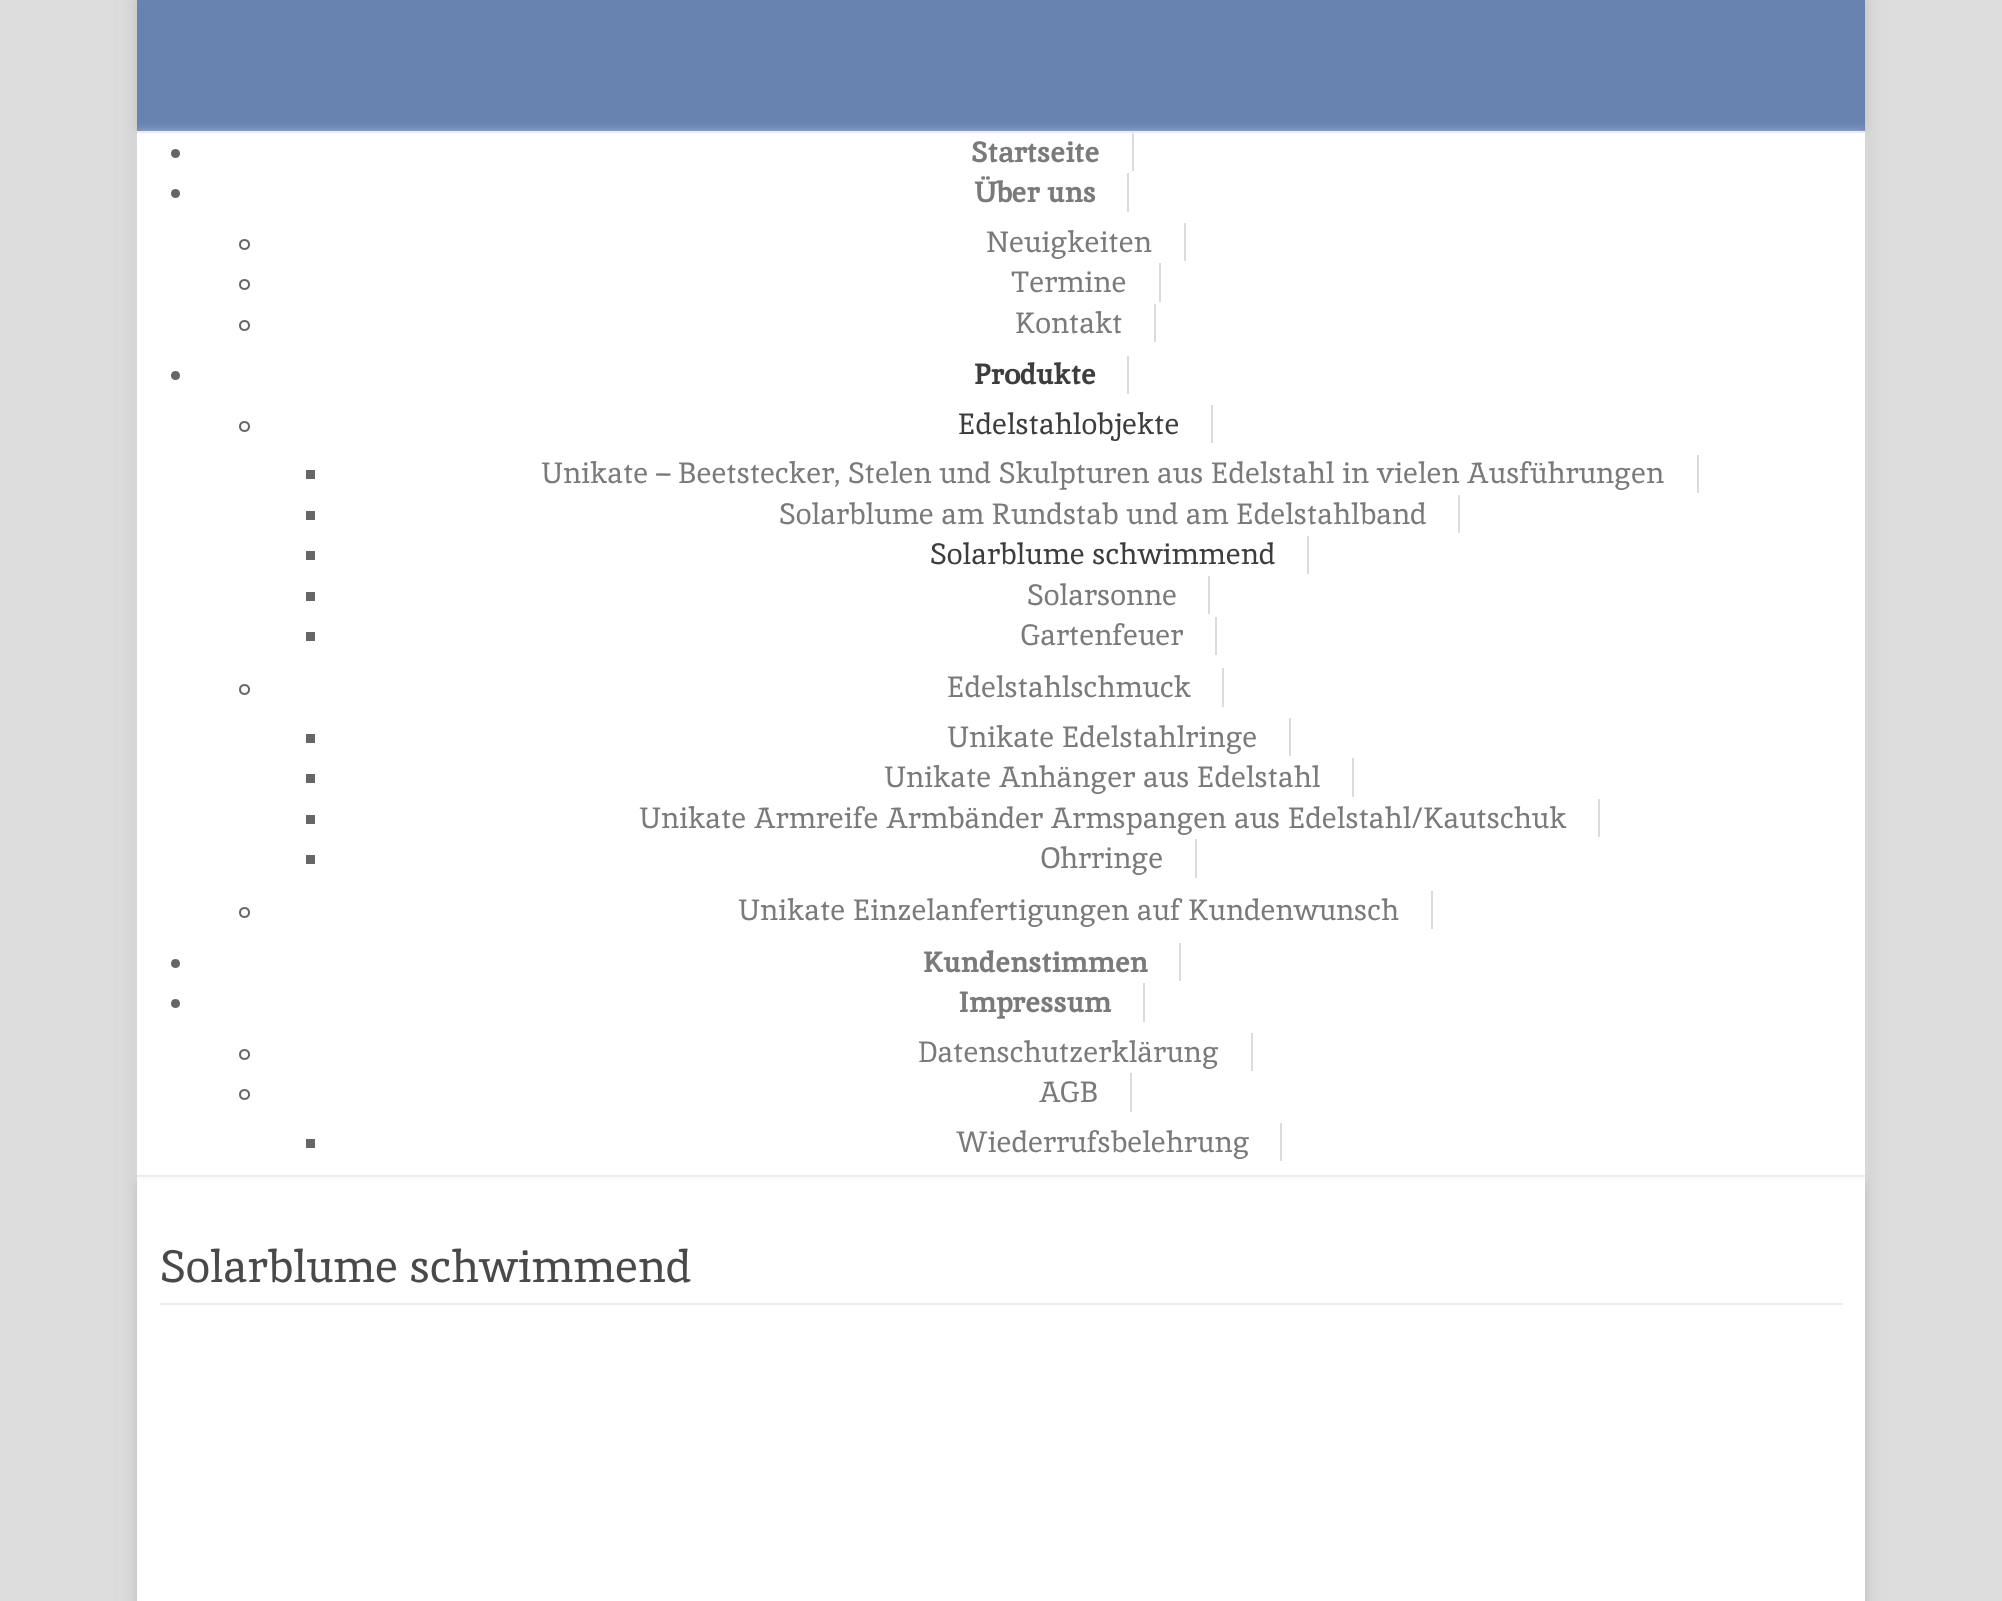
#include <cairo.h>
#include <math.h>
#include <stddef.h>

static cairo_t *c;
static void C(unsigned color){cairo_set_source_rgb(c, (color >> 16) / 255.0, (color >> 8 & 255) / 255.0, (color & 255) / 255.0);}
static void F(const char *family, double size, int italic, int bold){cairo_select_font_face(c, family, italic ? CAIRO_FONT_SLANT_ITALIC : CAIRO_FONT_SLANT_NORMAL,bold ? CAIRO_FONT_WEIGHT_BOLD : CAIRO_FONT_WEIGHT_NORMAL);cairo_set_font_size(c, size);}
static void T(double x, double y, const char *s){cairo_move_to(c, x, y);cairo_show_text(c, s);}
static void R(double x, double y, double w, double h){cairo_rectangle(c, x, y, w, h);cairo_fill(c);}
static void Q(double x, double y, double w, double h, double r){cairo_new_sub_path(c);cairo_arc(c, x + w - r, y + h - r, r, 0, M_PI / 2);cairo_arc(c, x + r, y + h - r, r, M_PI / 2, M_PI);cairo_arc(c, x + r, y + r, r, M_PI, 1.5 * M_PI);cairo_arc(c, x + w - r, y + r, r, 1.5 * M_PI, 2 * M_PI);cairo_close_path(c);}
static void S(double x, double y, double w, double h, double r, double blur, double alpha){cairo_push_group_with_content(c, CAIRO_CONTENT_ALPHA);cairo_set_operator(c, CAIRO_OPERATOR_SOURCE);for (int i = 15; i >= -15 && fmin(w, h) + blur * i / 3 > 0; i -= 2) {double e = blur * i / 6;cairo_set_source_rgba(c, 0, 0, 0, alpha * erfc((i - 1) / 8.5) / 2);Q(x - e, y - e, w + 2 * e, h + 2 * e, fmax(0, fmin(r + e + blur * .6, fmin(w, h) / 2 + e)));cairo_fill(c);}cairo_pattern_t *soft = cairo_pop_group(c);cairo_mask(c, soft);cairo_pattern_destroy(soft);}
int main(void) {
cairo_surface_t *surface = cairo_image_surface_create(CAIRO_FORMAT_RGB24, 2002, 1601);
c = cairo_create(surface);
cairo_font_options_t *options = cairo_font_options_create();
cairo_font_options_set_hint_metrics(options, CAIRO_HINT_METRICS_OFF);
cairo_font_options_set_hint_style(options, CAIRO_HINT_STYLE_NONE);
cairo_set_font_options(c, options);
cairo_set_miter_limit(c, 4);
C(0xdddddd);
cairo_paint(c);
C(0xbbbbbb);
S(137,0,1728,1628,0,9,1);
C(0xffffff);
R(137,133,1728,1468);
C(0x6883af);
R(137,0,1728,131);
cairo_save(c);
cairo_set_fill_rule(c,CAIRO_FILL_RULE_EVEN_ODD);
cairo_new_path(c);
cairo_move_to(c,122,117);
cairo_line_to(c,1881,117);
cairo_line_to(c,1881,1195);
cairo_line_to(c,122,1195);
cairo_close_path(c);
cairo_move_to(c,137,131);
cairo_line_to(c,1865,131);
cairo_line_to(c,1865,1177);
cairo_line_to(c,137,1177);
cairo_close_path(c);
cairo_clip(c);
C(0xf5f5f5);
S(140,135,1723,1042,0,5.5,1);
cairo_restore(c);
C(0xececec);
R(137,131,1728,2);
R(137,1175,1728,2);
C(0x666666);
cairo_arc(c,175.5,153.5,4.5,0,2 * M_PI);
cairo_fill(c);
F("Inika",29.25,0,1);
C(0x7a7a7a);
T(971,162,"Startseite");
C(0xdbdbdb);
R(1132,133,2,38);
C(0x666666);
cairo_new_path(c);
cairo_arc(c,175.5,193.5,4.5,0,2 * M_PI);
cairo_fill(c);
C(0x7a7a7a);
T(974,202,"Über uns");
C(0xdbdbdb);
R(1127,173,2,39);
cairo_new_path(c);
cairo_arc(c,244.5,244.5,4.5,0,2 * M_PI);
C(0x666666);
cairo_stroke(c);
F("Inika",29.25,0,0);
C(0x7a7a7a);
T(986,252,"Neuigkeiten");
C(0xdbdbdb);
R(1184,223,2,38);
cairo_new_path(c);
cairo_arc(c,244.5,284.5,4.5,0,2 * M_PI);
C(0x666666);
cairo_stroke(c);
C(0x7a7a7a);
T(1011,292,"Termine");
C(0xdbdbdb);
R(1159,263,2,39);
cairo_new_path(c);
cairo_arc(c,244.5,325.5,4.5,0,2 * M_PI);
C(0x666666);
cairo_stroke(c);
C(0x7a7a7a);
T(1015,333,"Kontakt");
C(0xdbdbdb);
R(1154,304,2,38);
C(0x666666);
cairo_new_path(c);
cairo_arc(c,175.5,375.5,4.5,0,2 * M_PI);
cairo_fill(c);
F("Inika",29.25,0,1);
C(0x3d3d3d);
T(974,384,"Produkte");
C(0xdbdbdb);
R(1127,356,2,38);
cairo_new_path(c);
cairo_arc(c,244.5,426.5,4.5,0,2 * M_PI);
C(0x666666);
cairo_stroke(c);
F("Inika",29.25,0,0);
C(0x3d3d3d);
T(958,434,"Edelstahlobjekte");
C(0xdbdbdb);
R(1211,405,2,38);
C(0x666666);
R(306,470,9,9);
C(0x7a7a7a);
T(541,483,"Unikate – Beetstecker, Stelen und Skulpturen aus Edelstahl in vielen Ausführungen");
C(0xdbdbdb);
R(1697,455,2,38);
C(0x666666);
R(306,511,9,9);
C(0x7a7a7a);
T(779,524,"Solarblume am Rundstab und am Edelstahlband");
C(0xdbdbdb);
R(1458,495,2,38);
C(0x666666);
R(306,551,9,9);
C(0x3d3d3d);
T(930,564,"Solarblume schwimmend");
C(0xdbdbdb);
R(1307,536,2,38);
C(0x666666);
R(306,592,9,9);
C(0x7a7a7a);
T(1027,605,"Solarsonne");
C(0xdbdbdb);
R(1208,576,2,38);
C(0x666666);
R(306,632,9,9);
C(0x7a7a7a);
T(1021,645,"Gartenfeuer");
C(0xdbdbdb);
R(1215,617,2,38);
cairo_new_path(c);
cairo_arc(c,244.5,689.5,4.5,0,2 * M_PI);
C(0x666666);
cairo_stroke(c);
C(0x7a7a7a);
T(947,697,"Edelstahlschmuck");
C(0xdbdbdb);
R(1222,668,2,39);
C(0x666666);
R(306,734,9,9);
C(0x7a7a7a);
T(947,747,"Unikate Edelstahlringe");
C(0xdbdbdb);
R(1289,718,2,38);
C(0x666666);
R(306,774,9,9);
C(0x7a7a7a);
T(884,787,"Unikate Anhänger aus Edelstahl");
C(0xdbdbdb);
R(1352,758,2,39);
C(0x666666);
R(306,815,9,9);
C(0x7a7a7a);
T(639,828,"Unikate Armreife Armbänder Armspangen aus Edelstahl/Kautschuk");
C(0xdbdbdb);
R(1598,799,2,38);
C(0x666666);
R(306,855,9,9);
C(0x7a7a7a);
T(1041,868,"Ohrringe");
C(0xdbdbdb);
R(1195,839,2,39);
cairo_new_path(c);
cairo_arc(c,244.5,912.5,4.5,0,2 * M_PI);
C(0x666666);
cairo_stroke(c);
C(0x7a7a7a);
T(738,920,"Unikate Einzelanfertigungen auf Kundenwunsch");
C(0xdbdbdb);
R(1431,891,2,38);
C(0x666666);
cairo_new_path(c);
cairo_arc(c,175.5,963.5,4.5,0,2 * M_PI);
cairo_fill(c);
F("Inika",29.25,0,1);
C(0x7a7a7a);
T(923,972,"Kundenstimmen");
C(0xdbdbdb);
R(1179,943,2,38);
C(0x666666);
cairo_new_path(c);
cairo_arc(c,175.5,1003.5,4.5,0,2 * M_PI);
cairo_fill(c);
C(0x7a7a7a);
T(958,1012,"Impressum");
C(0xdbdbdb);
R(1143,983,2,39);
cairo_new_path(c);
cairo_arc(c,244.5,1054.5,4.5,0,2 * M_PI);
C(0x666666);
cairo_stroke(c);
F("Inika",29.25,0,0);
C(0x7a7a7a);
T(918,1062,"Datenschutzerklärung");
C(0xdbdbdb);
R(1251,1033,2,38);
cairo_new_path(c);
cairo_arc(c,244.5,1094.5,4.5,0,2 * M_PI);
C(0x666666);
cairo_stroke(c);
C(0x7a7a7a);
T(1039,1102,"AGB");
C(0xdbdbdb);
R(1130,1073,2,39);
C(0x666666);
R(306,1139,9,9);
C(0x7a7a7a);
T(956,1152,"Wiederrufsbelehrung");
C(0xdbdbdb);
R(1280,1123,2,38);
C(0xececec);
R(160,1303,1683,2);
F("Inika",45,0,0);
C(0x494949);
T(160,1282,"Solarblume schwimmend");
cairo_surface_write_to_png(surface, "o.png");
cairo_font_options_destroy(options);
cairo_destroy(c);
cairo_surface_destroy(surface);
return 0;
}
